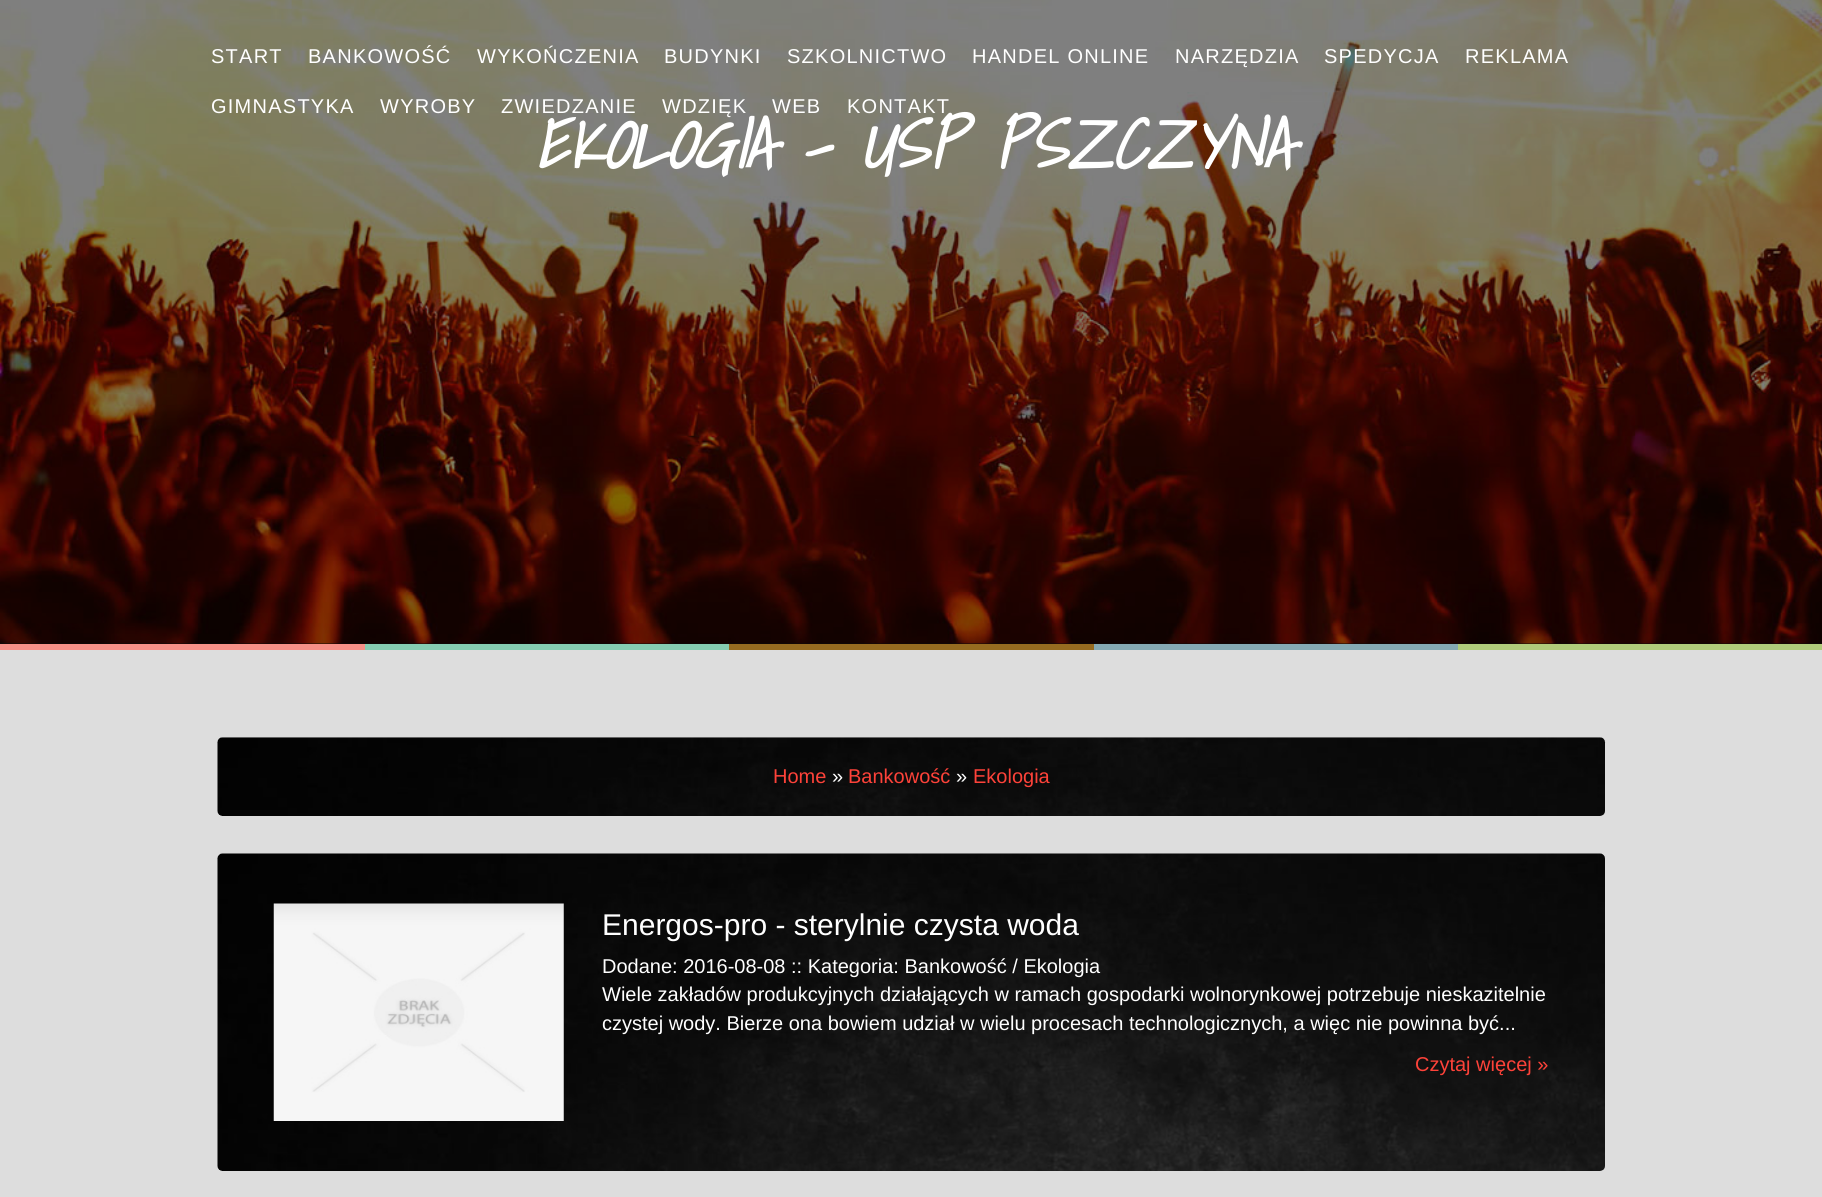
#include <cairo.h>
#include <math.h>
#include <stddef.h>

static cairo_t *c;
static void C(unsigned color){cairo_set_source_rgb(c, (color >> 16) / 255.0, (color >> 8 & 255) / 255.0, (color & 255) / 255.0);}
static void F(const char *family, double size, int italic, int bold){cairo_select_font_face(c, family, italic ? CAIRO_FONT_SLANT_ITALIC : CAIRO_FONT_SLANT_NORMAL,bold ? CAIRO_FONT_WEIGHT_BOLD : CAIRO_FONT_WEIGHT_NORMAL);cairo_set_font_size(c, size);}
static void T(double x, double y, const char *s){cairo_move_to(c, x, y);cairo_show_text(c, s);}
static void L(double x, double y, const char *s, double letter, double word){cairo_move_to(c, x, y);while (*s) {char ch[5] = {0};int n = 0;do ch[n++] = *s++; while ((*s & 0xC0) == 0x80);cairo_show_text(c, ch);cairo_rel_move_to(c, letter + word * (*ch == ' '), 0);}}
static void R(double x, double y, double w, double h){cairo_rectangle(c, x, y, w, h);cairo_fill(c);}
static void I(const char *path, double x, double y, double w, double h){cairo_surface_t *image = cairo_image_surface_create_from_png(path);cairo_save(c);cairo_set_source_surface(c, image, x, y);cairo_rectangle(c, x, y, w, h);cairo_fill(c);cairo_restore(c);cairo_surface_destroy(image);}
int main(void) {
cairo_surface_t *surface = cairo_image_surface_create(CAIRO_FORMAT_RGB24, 1822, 1197);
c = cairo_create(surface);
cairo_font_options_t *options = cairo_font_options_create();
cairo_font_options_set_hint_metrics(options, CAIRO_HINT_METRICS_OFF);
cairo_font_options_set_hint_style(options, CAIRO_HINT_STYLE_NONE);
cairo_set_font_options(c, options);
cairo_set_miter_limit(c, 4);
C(0xdddddd);
cairo_paint(c);
C(0x0b0b0b);
R(0,643,1822,1);
I("1.png",0,0,1822,644);
F("Liberation Sans",20,0,0);
C(0xffffff);
L(211,63,"START",1.25,0);
L(308,63,"BANKOWOŚĆ",1.25,0);
L(477,63,"WYKOŃCZENIA",1.25,0);
L(664,63,"BUDYNKI",1.25,0);
L(787,63,"SZKOLNICTWO",1.25,0);
L(972,63,"HANDEL ONLINE",1.25,0);
L(1175,63,"NARZĘDZIA",1.25,0);
L(1324,63,"SPEDYCJA",1.25,0);
L(1465,63,"REKLAMA",1.25,0);
L(211,113,"GIMNASTYKA",1.25,0);
L(380,113,"WYROBY",1.25,0);
L(501,113,"ZWIEDZANIE",1.25,0);
L(662,113,"WDZIĘK",1.25,0);
L(772,113,"WEB",1.25,0);
L(847,113,"KONTAKT",1.25,0);
F("Shadows Into Light",68.75,1,1);
T(534,169,"EKOLOGIA - USP PSZCZYNA");
C(0xf69087);
R(0,644,365,6);
C(0x85ccb1);
R(365,644,364,6);
C(0x966b20);
R(729,644,365,6);
C(0x85a9b3);
R(1094,644,364,6);
C(0xb0cb7a);
R(1458,644,364,6);
I("2.png",217,737,1389,79);
F("Liberation Sans",20,0,0);
C(0xfd4239);
T(773,783,"Home");
C(0xffffff);
T(832,783,"»");
C(0xfd4239);
T(848,783,"Bankowość");
C(0xffffff);
T(956,783,"»");
C(0xfd4239);
T(973,783,"Ekologia");
I("3.png",217,853,1388,318);
I("4.png",273,903,291,218);
F("Liberation Sans",30,0,0);
C(0xffffff);
T(602,935,"Energos-pro - sterylnie czysta woda");
F("Liberation Sans",20,0,0);
T(602,973,"Dodane: 2016-08-08 :: Kategoria: Bankowość / Ekologia");
T(602,1001,"Wiele zakładów produkcyjnych działających w ramach gospodarki wolnorynkowej potrzebuje nieskazitelnie");
T(602,1030,"czystej wody. Bierze ona bowiem udział w wielu procesach technologicznych, a więc nie powinna być...");
C(0xfd4239);
T(1415,1071,"Czytaj więcej »");
cairo_surface_write_to_png(surface, "o.png");
cairo_font_options_destroy(options);
cairo_destroy(c);
cairo_surface_destroy(surface);
return 0;
}
